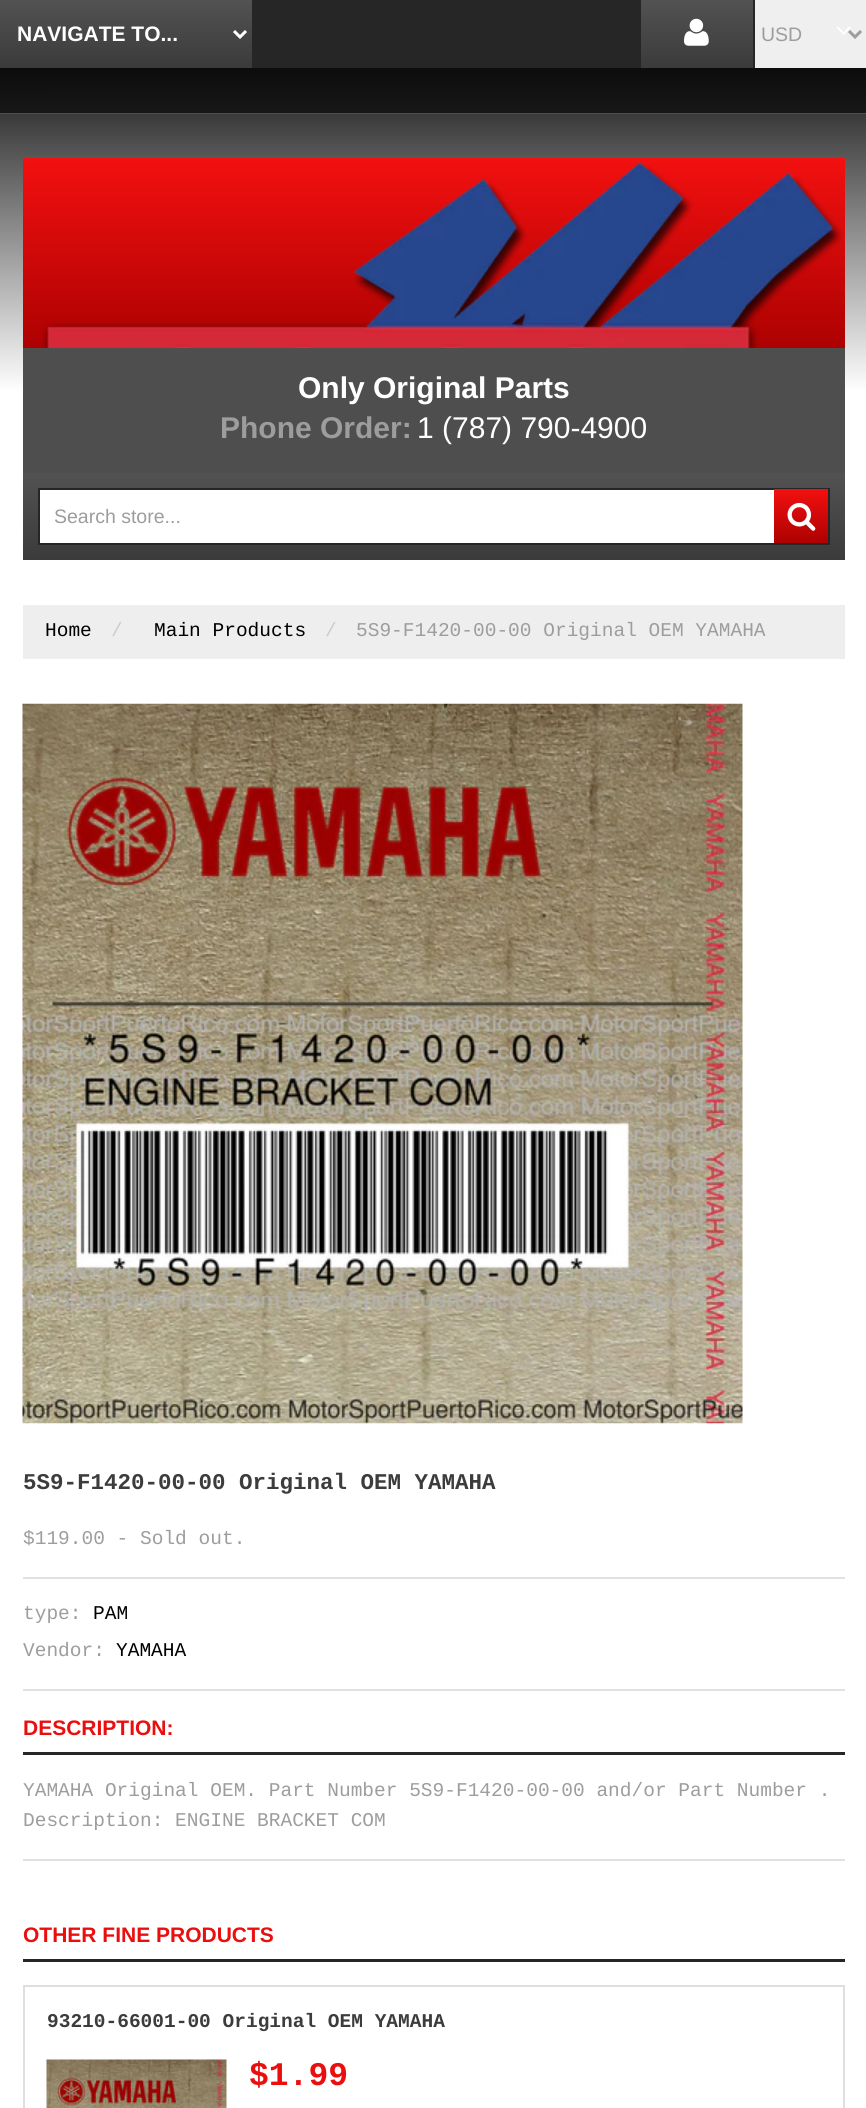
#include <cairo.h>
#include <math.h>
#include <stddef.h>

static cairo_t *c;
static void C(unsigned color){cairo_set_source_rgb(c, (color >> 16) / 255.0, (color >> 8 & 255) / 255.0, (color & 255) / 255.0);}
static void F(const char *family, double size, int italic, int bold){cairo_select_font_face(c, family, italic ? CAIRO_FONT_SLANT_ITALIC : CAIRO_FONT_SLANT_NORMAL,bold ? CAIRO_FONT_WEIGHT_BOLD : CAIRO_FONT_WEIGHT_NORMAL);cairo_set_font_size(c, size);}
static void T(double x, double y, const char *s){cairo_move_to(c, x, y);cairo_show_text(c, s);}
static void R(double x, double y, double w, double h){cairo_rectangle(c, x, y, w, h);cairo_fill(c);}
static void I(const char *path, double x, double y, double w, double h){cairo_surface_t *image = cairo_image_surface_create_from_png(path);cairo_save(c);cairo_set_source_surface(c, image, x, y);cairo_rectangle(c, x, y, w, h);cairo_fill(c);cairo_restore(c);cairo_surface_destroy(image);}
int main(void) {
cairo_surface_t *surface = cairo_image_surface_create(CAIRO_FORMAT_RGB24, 866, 2108);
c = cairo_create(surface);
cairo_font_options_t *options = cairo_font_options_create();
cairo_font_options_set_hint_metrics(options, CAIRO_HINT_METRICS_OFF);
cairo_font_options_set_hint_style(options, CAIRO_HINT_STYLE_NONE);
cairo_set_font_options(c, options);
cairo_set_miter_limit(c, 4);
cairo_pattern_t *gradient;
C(0x262626);
cairo_paint(c);
C(0xffffff);
R(0,392,866,1716);
C(0x4e4e4e);
R(0,113,866,1);
gradient = cairo_pattern_create_linear(126,0,126,68);
cairo_pattern_add_color_stop_rgba(gradient,0,0.322,0.322,0.322,1);
cairo_pattern_add_color_stop_rgba(gradient,1,0.231,0.231,0.231,1);
cairo_set_source(c,gradient);
cairo_pattern_destroy(gradient);
R(0,0,252,68);
cairo_new_path(c);
cairo_move_to(c,234,31);
cairo_line_to(c,240,37);
cairo_line_to(c,246,31);
C(0xffffff);
cairo_set_line_width(c,3);
cairo_stroke(c);
F("Liberation Sans",21,0,1);
T(17,41,"NAVIGATE TO...");
gradient = cairo_pattern_create_linear(697,0,697,68);
cairo_pattern_add_color_stop_rgba(gradient,0,0.322,0.322,0.322,1);
cairo_pattern_add_color_stop_rgba(gradient,1,0.231,0.231,0.231,1);
cairo_set_source(c,gradient);
cairo_pattern_destroy(gradient);
R(641,0,112,68);
I("1.png",684,18,25,28);
C(0xefefef);
R(755,0,111,68);
cairo_new_path(c);
cairo_move_to(c,849,31);
cairo_line_to(c,855,37);
cairo_line_to(c,861,31);
C(0x9d9d9d);
cairo_stroke(c);
F("Liberation Sans",19.5,0,0);
T(761,41,"USD");
I("2.png",836,26,15,9);
gradient = cairo_pattern_create_linear(434,114,434,392);
cairo_pattern_add_color_stop_rgba(gradient,0,0.227,0.227,0.227,1);
cairo_pattern_add_color_stop_rgba(gradient,1,1,1,1,1);
cairo_set_source(c,gradient);
cairo_pattern_destroy(gradient);
R(0,114,866,278);
gradient = cairo_pattern_create_linear(434,157,434,348);
cairo_pattern_add_color_stop_rgba(gradient,0,0.953,0.063,0.063,1);
cairo_pattern_add_color_stop_rgba(gradient,1,0.678,0.004,0.004,1);
cairo_set_source(c,gradient);
cairo_pattern_destroy(gradient);
R(23,158,822,190);
I("3.png",42,162,801,186);
C(0x4e4e4e);
R(23,348,822,125);
F("Liberation Sans",30,0,1);
C(0xffffff);
T(298,398,"Only Original Parts");
C(0x9d9d9d);
T(220,438,"Phone Order:");
F("Liberation Sans",30,0,0);
C(0xffffff);
T(417,438,"1 (787) 790-4900");
gradient = cairo_pattern_create_linear(434,472,434,560);
cairo_pattern_add_color_stop_rgba(gradient,0,0.322,0.322,0.322,1);
cairo_pattern_add_color_stop_rgba(gradient,1,0.231,0.231,0.231,1);
cairo_set_source(c,gradient);
cairo_pattern_destroy(gradient);
R(23,473,822,87);
C(0xffffff);
R(40,490,734,53);
cairo_rectangle(c,39,489,790,55);
C(0x262626);
cairo_set_line_width(c,2);
cairo_stroke(c);
F("Liberation Sans",19.5,0,0);
C(0x9d9d9d);
T(54,523,"Search store...");
gradient = cairo_pattern_create_linear(801,489,801,543);
cairo_pattern_add_color_stop_rgba(gradient,0,0.953,0.063,0.063,1);
cairo_pattern_add_color_stop_rgba(gradient,1,0.678,0.004,0.004,1);
cairo_set_source(c,gradient);
cairo_pattern_destroy(gradient);
R(774,489,54,54);
I("4.png",787,502,29,29);
C(0xeeeeee);
R(23,605,822,54);
F("Liberation Mono",19.5,0,0);
C(0x000000);
T(45,636,"Home");
C(0xcccccc);
T(111,636,"/");
C(0x000000);
T(154,636,"Main Products");
C(0xcccccc);
T(325,636,"/");
C(0x9d9d9d);
T(356,636,"5S9-F1420-00-00 Original OEM YAMAHA");
I("5.png",22,703,721,721);
F("Liberation Mono",22.5,0,1);
C(0x3c3c3c);
T(23,1489,"5S9-F1420-00-00 Original OEM YAMAHA");
F("Liberation Mono",19.5,0,0);
C(0x9d9d9d);
T(23,1544,"$119.00 - Sold out.");
C(0xe1e1e1);
R(23,1577,822,2);
R(23,1689,822,2);
C(0x9d9d9d);
T(23,1619,"type:");
C(0x000000);
T(93,1619,"PAM");
C(0x9d9d9d);
T(23,1656,"Vendor:");
C(0x000000);
T(116,1656,"YAMAHA");
C(0x262626);
R(23,1752,822,3);
F("Liberation Sans",21,0,1);
C(0xeb0e0e);
T(23,1735,"DESCRIPTION:");
F("Liberation Mono",19.5,0,0);
C(0x9d9d9d);
T(23,1796,"YAMAHA Original OEM. Part Number 5S9-F1420-00-00 and/or Part Number .");
T(23,1826,"Description: ENGINE BRACKET COM");
C(0xe1e1e1);
R(23,1859,822,2);
C(0x262626);
R(23,1959,822,3);
F("Liberation Sans",21,0,1);
C(0xeb0e0e);
T(23,1942,"OTHER FINE PRODUCTS");
cairo_rectangle(c,24,1986,820,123);
C(0xdfdfdf);
cairo_stroke(c);
F("Liberation Mono",19.5,0,1);
C(0x3c3c3c);
T(47,2027,"93210-66001-00 Original OEM YAMAHA");
I("6.png",46,2059,181,49);
F("Liberation Mono",33,0,1);
C(0xeb0e0e);
T(249,2085,"$1.99");
gradient = cairo_pattern_create_linear(433,67,434,983);
cairo_pattern_add_color_stop_rgba(gradient,0,0.047,0.047,0.047,1);
cairo_pattern_add_color_stop_rgba(gradient,1,0.945,0.945,0.945,1);
cairo_set_source(c,gradient);
cairo_pattern_destroy(gradient);
R(0,68,866,45);
cairo_surface_write_to_png(surface, "o.png");
cairo_font_options_destroy(options);
cairo_destroy(c);
cairo_surface_destroy(surface);
return 0;
}
